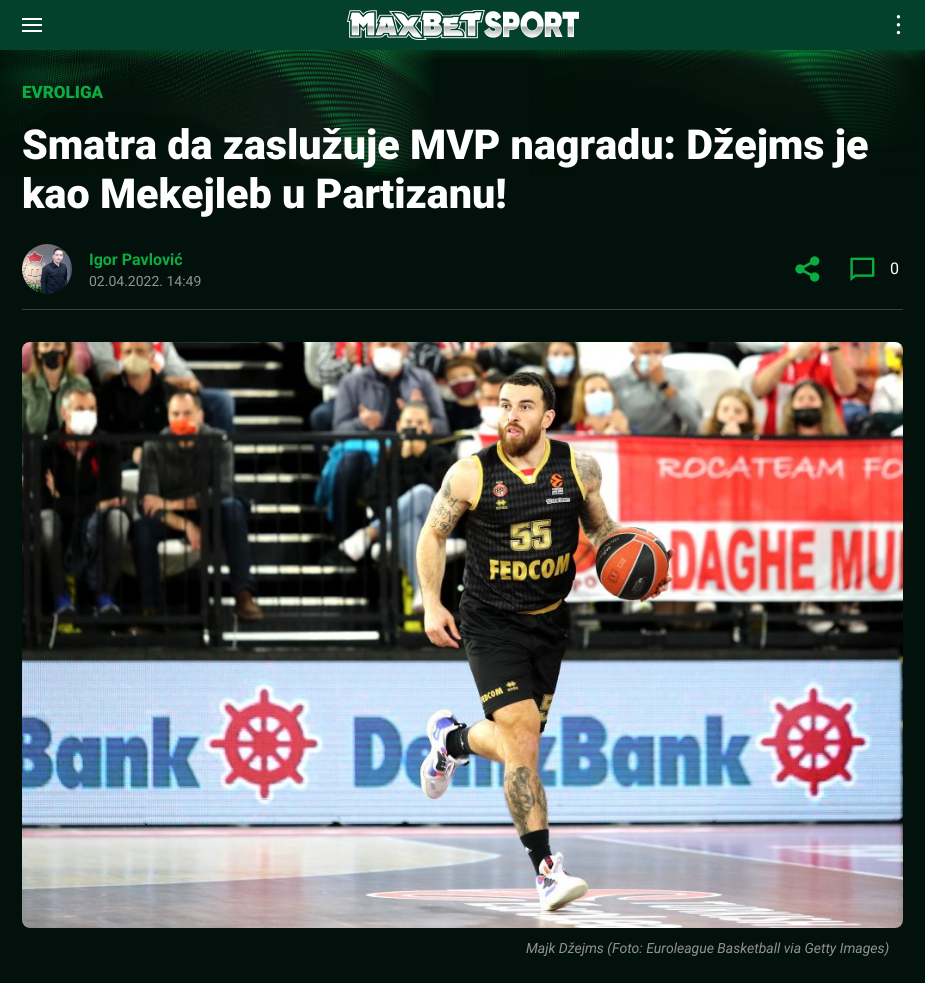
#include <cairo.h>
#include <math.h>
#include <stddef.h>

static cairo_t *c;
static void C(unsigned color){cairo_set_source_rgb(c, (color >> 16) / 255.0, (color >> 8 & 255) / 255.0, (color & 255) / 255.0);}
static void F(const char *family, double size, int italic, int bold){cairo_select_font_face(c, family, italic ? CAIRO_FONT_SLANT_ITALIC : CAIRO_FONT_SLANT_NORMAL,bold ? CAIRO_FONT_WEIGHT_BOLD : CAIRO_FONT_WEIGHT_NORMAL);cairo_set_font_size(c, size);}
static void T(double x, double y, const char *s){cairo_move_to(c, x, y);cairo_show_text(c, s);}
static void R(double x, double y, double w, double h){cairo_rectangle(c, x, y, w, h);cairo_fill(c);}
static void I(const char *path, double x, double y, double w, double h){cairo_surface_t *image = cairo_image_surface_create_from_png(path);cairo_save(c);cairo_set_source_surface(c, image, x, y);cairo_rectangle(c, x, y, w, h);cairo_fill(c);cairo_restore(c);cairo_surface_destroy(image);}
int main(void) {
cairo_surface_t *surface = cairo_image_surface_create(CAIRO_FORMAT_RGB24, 925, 983);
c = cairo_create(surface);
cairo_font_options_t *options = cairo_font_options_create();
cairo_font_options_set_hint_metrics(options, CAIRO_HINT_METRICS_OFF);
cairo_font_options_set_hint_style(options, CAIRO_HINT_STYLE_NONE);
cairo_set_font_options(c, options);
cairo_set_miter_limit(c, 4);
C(0x02110b);
cairo_paint(c);
I("1.png",0,50,925,126);
C(0x04412d);
R(0,0,925,50);
C(0xffffff);
R(22,18,20,2);
R(22,24,20,2);
R(22,30,20,2);
I("2.png",347,10,232,30);
F("Roboto",30,0,0);
cairo_save(c);
cairo_translate(c,897,13);
cairo_rotate(c,90 * M_PI / 180);
T(0,0,"...");
cairo_restore(c);
C(0x35413c);
R(22,309,881,1);
F("Roboto Black",17,0,0);
C(0x0bad40);
T(22,98,"EVROLIGA");
F("Roboto Black",41.25,0,0);
C(0xffffff);
T(22,159,"Smatra da zaslužuje MVP nagradu: Džejms je");
T(22,208,"kao Mekejleb u Partizanu!");
I("3.png",22,244,50,50);
F("Roboto",16,0,1);
C(0x0bad40);
T(89,265,"Igor Pavlović");
F("Roboto",14,0,0);
C(0x929292);
T(89,286,"02.04.2022. 14:49");
I("4.png",795,256,25,26);
I("5.png",850,257,25,24);
F("Roboto",16,0,0);
C(0xffffff);
T(890,274,"0");
I("6.png",22,342,881,586);
F("Roboto",14,1,0);
C(0x929292);
T(526,953,"Majk Džejms (Foto: Euroleague Basketball via Getty Images)");
cairo_surface_write_to_png(surface, "o.png");
cairo_font_options_destroy(options);
cairo_destroy(c);
cairo_surface_destroy(surface);
return 0;
}
